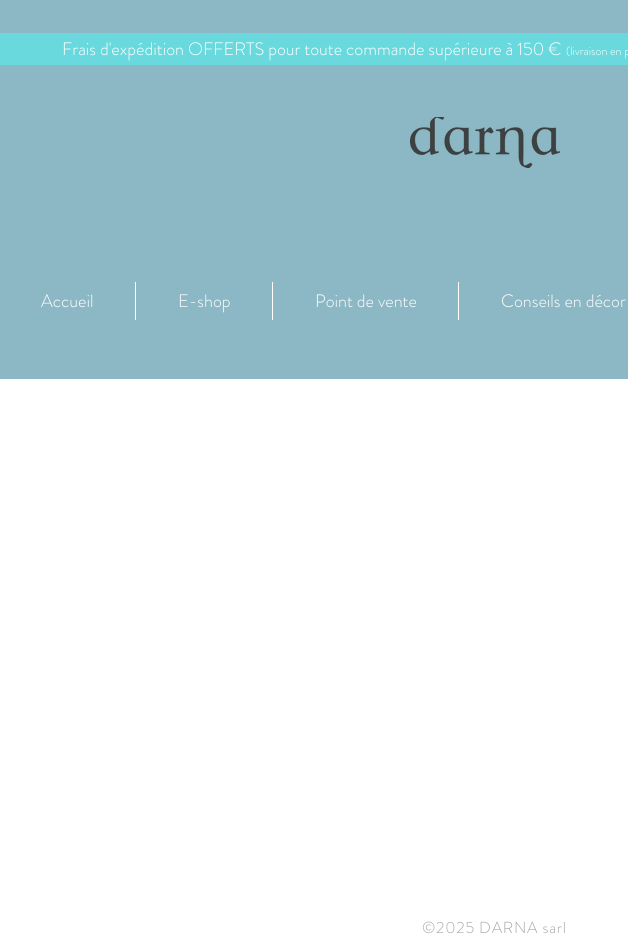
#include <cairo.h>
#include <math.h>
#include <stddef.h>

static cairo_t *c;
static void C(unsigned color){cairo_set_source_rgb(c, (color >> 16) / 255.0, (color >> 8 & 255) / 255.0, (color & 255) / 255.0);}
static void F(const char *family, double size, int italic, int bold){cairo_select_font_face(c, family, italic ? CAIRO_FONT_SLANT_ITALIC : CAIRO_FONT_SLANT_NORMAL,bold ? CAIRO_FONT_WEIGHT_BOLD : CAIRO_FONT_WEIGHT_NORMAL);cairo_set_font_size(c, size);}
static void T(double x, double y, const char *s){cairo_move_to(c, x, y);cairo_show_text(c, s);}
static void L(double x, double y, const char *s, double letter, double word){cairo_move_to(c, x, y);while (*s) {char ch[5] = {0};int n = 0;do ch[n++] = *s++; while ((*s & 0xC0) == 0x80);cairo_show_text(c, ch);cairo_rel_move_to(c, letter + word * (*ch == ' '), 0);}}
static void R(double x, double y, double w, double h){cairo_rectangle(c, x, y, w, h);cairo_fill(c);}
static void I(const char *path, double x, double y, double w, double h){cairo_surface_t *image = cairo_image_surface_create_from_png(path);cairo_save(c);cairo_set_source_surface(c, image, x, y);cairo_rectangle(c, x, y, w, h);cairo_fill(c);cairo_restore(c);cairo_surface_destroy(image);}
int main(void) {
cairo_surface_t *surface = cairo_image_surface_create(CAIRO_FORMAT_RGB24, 628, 942);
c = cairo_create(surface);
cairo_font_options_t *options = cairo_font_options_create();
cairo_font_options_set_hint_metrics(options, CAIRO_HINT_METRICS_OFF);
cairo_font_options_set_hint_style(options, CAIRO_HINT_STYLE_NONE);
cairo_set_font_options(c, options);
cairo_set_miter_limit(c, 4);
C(0xffffff);
cairo_paint(c);
C(0x8cb8c5);
R(0,0,628,379);
C(0x6ad9de);
R(0,33,628,32);
F("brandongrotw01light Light",18,0,0);
C(0xffffff);
T(62,55,"Frais d'expédition OFFERTS pour toute commande supérieure à 150 €");
F("brandongrotw01light Light",12,0,0);
T(566,55,"(livraison en p");
I("1.png",410,117,150,51);
F("brandongrotw01light Light",18,0,0);
T(41,307,"Accueil");
R(135,282,1,38);
T(178,307,"E-shop");
R(272,282,1,38);
T(315,307,"Point de vente");
R(458,282,1,38);
T(501,307,"Conseils en décor");
F("brandongrotw01light Light",16,0,0);
C(0xa7a8a7);
L(422,933,"©2025 DARNA sarl",.75,0);
cairo_surface_write_to_png(surface, "o.png");
cairo_font_options_destroy(options);
cairo_destroy(c);
cairo_surface_destroy(surface);
return 0;
}
